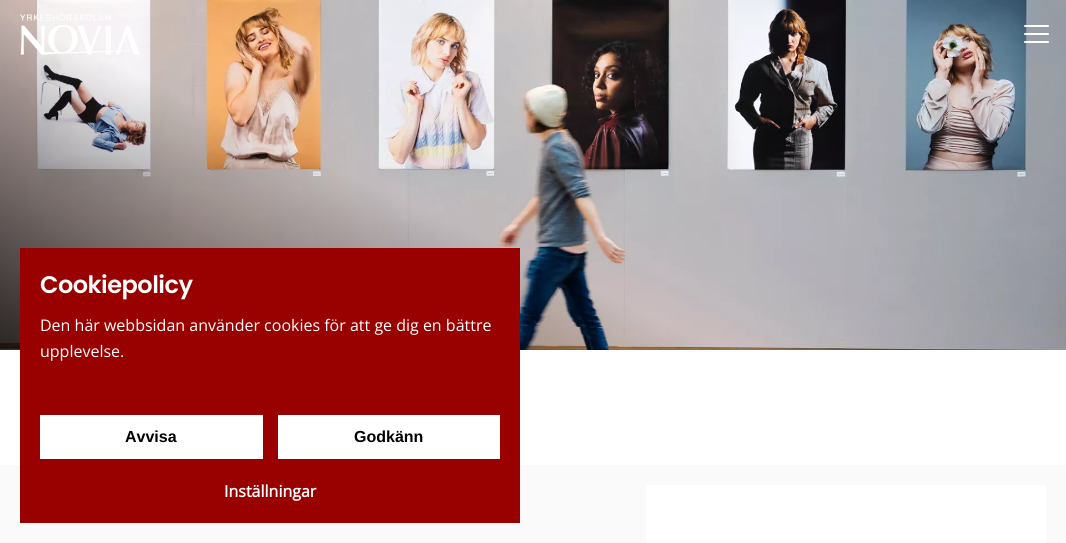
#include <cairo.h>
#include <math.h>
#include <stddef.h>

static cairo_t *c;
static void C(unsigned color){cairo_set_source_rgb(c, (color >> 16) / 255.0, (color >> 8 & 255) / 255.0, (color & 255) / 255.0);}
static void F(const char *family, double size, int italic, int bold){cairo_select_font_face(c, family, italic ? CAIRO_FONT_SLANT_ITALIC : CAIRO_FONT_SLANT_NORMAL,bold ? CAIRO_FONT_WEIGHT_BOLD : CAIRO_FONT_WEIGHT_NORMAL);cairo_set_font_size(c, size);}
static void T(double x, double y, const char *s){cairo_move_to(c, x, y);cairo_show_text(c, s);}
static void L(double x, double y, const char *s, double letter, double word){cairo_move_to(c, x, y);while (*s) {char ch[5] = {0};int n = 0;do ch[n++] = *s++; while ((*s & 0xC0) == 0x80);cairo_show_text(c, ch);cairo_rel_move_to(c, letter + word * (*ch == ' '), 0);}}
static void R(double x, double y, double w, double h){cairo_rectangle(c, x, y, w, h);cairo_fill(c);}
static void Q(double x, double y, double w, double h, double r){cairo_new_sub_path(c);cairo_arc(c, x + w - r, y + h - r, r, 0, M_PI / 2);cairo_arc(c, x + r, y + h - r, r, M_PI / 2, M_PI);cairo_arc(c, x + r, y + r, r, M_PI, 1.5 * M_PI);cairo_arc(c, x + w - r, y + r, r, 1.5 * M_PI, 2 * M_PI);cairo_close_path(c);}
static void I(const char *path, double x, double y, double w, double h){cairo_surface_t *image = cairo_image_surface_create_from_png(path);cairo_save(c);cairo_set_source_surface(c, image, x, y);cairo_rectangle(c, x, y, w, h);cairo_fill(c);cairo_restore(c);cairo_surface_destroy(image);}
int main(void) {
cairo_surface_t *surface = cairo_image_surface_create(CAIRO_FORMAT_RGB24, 1066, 543);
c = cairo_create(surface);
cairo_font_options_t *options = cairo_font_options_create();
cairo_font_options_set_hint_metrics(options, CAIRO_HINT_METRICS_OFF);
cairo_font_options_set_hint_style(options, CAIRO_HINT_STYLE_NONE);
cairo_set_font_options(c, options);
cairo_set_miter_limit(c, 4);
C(0xffffff);
cairo_paint(c);
I("1.png",0,0,1066,350);
C(0xfafafa);
R(0,465,1066,78);
C(0xffffff);
R(646,485,400,58);
I("2.png",20,13,120,42);
Q(1024,25,25,2,1);
cairo_fill(c);
Q(1024,33,25,2,1);
cairo_fill(c);
Q(1024,41,25,2,1);
cairo_fill(c);
C(0x990000);
R(20,248,500,275);
F("Poppins SemiBold",24,0,0);
C(0xffffff);
L(40,293,"Cookiepolicy",-.5,0);
F("Open Sans",16,0,0);
T(40,331,"Den här webbsidan använder cookies för att ge dig en bättre");
T(40,357,"upplevelse.");
R(40,415,223,44);
F("Liberation Sans",16,0,1);
C(0x000000);
T(125,442,"Avvisa");
C(0xffffff);
R(278,415,222,44);
C(0x000000);
T(354,442,"Godkänn");
F("Open Sans",16,0,1);
C(0xffffff);
T(224,497,"Inställningar");
cairo_surface_write_to_png(surface, "o.png");
cairo_font_options_destroy(options);
cairo_destroy(c);
cairo_surface_destroy(surface);
return 0;
}
